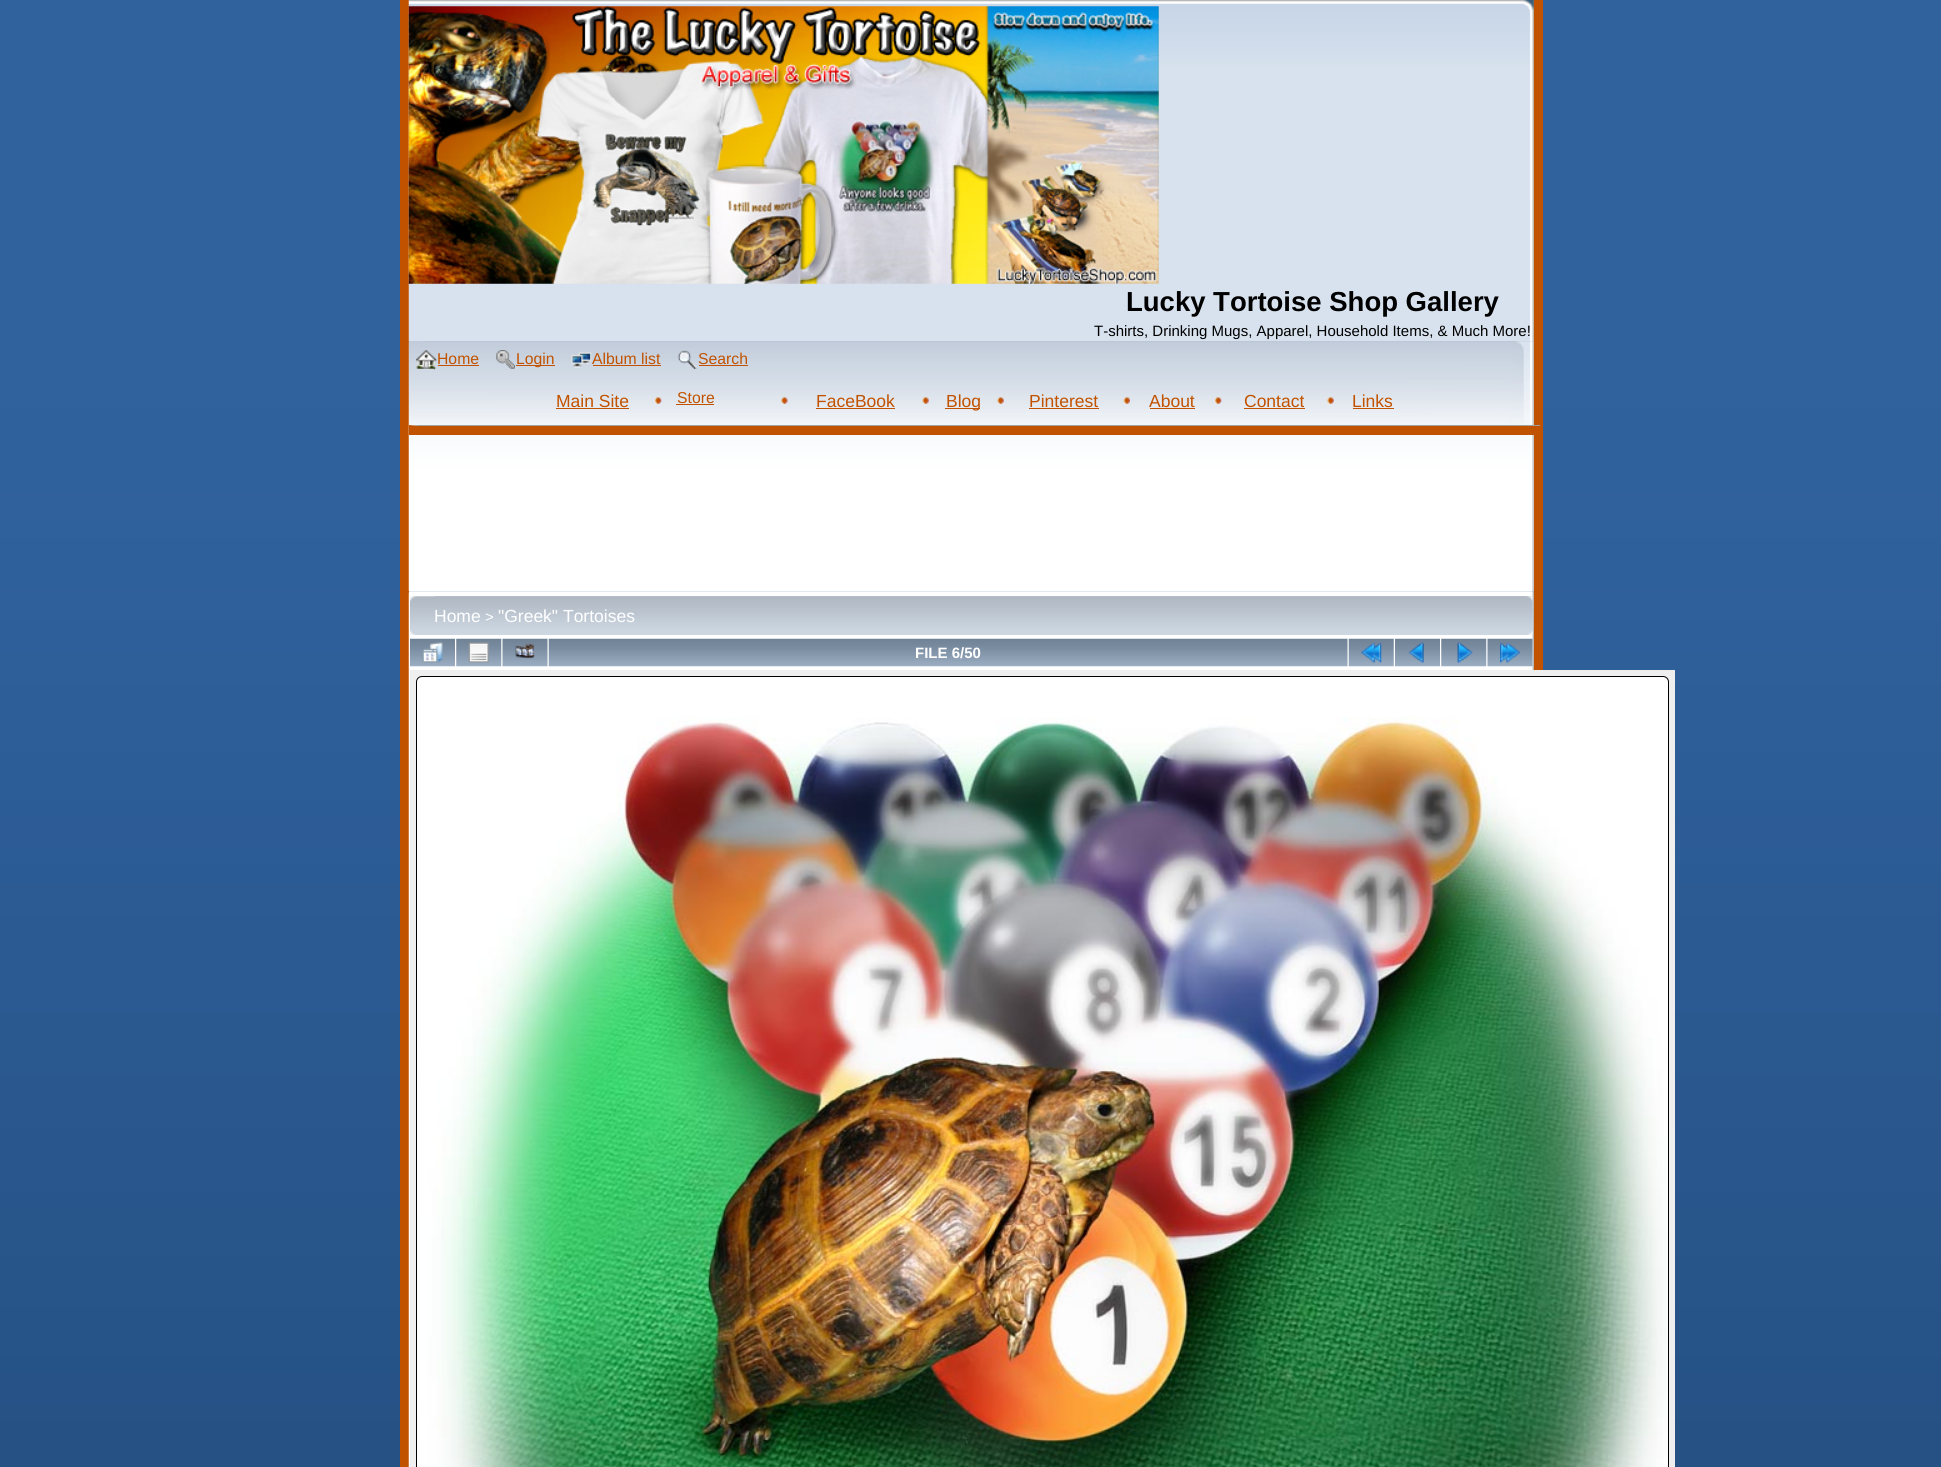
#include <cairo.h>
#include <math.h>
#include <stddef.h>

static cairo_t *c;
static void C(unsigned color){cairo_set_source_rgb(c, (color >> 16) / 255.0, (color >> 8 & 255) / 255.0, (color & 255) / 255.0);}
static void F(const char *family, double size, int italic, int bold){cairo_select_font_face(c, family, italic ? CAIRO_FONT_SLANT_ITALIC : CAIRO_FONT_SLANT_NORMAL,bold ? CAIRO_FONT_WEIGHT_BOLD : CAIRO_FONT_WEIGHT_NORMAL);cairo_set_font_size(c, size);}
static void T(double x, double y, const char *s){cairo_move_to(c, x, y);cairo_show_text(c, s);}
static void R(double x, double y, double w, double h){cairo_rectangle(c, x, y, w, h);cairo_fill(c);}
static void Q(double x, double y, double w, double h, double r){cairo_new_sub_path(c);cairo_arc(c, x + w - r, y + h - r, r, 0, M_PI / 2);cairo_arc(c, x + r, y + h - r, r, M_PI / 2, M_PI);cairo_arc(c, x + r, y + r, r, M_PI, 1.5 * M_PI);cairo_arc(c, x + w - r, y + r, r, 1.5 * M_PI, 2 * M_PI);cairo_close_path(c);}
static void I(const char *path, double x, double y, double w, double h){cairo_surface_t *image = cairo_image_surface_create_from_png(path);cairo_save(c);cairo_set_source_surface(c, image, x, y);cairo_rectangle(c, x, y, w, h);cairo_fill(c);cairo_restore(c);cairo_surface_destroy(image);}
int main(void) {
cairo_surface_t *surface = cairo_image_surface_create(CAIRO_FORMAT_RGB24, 1941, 1467);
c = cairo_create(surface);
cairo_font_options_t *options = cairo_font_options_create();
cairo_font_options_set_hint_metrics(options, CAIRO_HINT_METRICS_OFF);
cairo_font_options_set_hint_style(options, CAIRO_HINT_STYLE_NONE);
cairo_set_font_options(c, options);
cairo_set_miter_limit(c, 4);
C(0xffffff);
cairo_paint(c);
I("1.png",0,0,1941,1467);
I("2.png",409,0,1125,342);
C(0xc15200);
R(1534,0,9,670);
R(400,0,9,341);
I("3.png",408,0,1126,342);
I("4.png",408,6,751,278);
F("Liberation Sans",27.5,0,1);
C(0x000000);
T(1126,311,"Lucky Tortoise Shop Gallery");
F("Liberation Sans",15,0,0);
T(1094,336,"T-shirts, Drinking Mugs, Apparel, Household Items, & Much More!");
I("5.png",409,341,1125,251);
C(0xc15200);
R(400,341,9,250);
I("6.png",408,341,1126,251);
I("7.png",416,350,21,20);
F("Liberation Sans",15.75,0,0);
T(437,364,"Home");
R(438,365,41,1);
I("8.png",496,350,19,19);
R(516,365,39,1);
T(516,364,"Login");
I("9.png",571,352,21,16);
T(592,364,"Album list");
R(593,365,68,1);
I("10.png",677,350,20,19);
T(698,364,"Search");
R(699,365,49,1);
F("Liberation Sans",17.5,0,0);
T(556,407,"Main Site");
R(556,408,73,1);
I("11.png",655,397,7,7);
F("Liberation Sans",15.75,0,0);
T(677,403,"Store");
R(676,404,38,1);
I("12.png",781,397,7,7);
F("Liberation Sans",17.5,0,0);
T(816,407,"FaceBook");
R(816,408,79,1);
I("13.png",922,397,7,7);
R(945,408,35,1);
T(946,407,"Blog");
I("13.png",997,397,7,7);
T(1029,407,"Pinterest");
R(1029,408,70,1);
I("14.png",1123,397,7,7);
T(1149,407,"About");
R(1150,408,45,1);
I("11.png",1215,397,7,7);
T(1244,407,"Contact");
R(1244,408,61,1);
I("13.png",1327,397,7,7);
T(1352,407,"Links");
R(1353,408,41,1);
C(0x9f9f9f);
cairo_new_path(c);
cairo_move_to(c,409,425);
cairo_line_to(c,1541,425);
cairo_line_to(c,1540,426);
cairo_line_to(c,418,426);
cairo_close_path(c);
cairo_fill(c);
C(0xc15200);
R(1540,425,1,1);
R(409,426,1125,9);
cairo_new_path(c);
cairo_move_to(c,409,435);
cairo_line_to(c,409,425);
cairo_line_to(c,417.5,426);
cairo_close_path(c);
cairo_fill(c);
I("15.png",409,591,1125,876);
R(400,591,9,876);
I("16.png",408,592,1,875);
I("17.png",410,596,1123,39);
I("18.png",435,596,1098,39);
C(0xffffff);
T(434,622,"Home");
F("Liberation Sans",15,0,0);
T(485,622,">");
F("Liberation Sans",17.5,0,0);
T(498,622,"\"Greek\" Tortoises");
I("19.png",410,638,45,29);
I("20.png",422,642,21,21);
I("21.png",456,638,46,29);
I("22.png",468,642,21,21);
I("23.png",502,638,46,29);
I("24.png",515,643,20,16);
I("25.png",548,638,800,29);
F("Liberation Sans",15,0,1);
T(915,658,"FILE 6/50");
I("26.png",1348,638,46,29);
I("27.png",1361,642,21,21);
I("19.png",1395,638,45,29);
I("28.png",1408,642,16,21);
I("21.png",1441,638,46,29);
I("29.png",1457,642,16,21);
I("30.png",1487,638,46,29);
I("31.png",1500,642,20,21);
C(0xefefef);
R(410,670,1265,797);
I("32.png",416,676,1253,791);
Q(416.5,676.5,1252,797,5.5);
C(0x000000);
cairo_set_line_width(c,1);
cairo_stroke(c);
cairo_surface_write_to_png(surface, "o.png");
cairo_font_options_destroy(options);
cairo_destroy(c);
cairo_surface_destroy(surface);
return 0;
}
